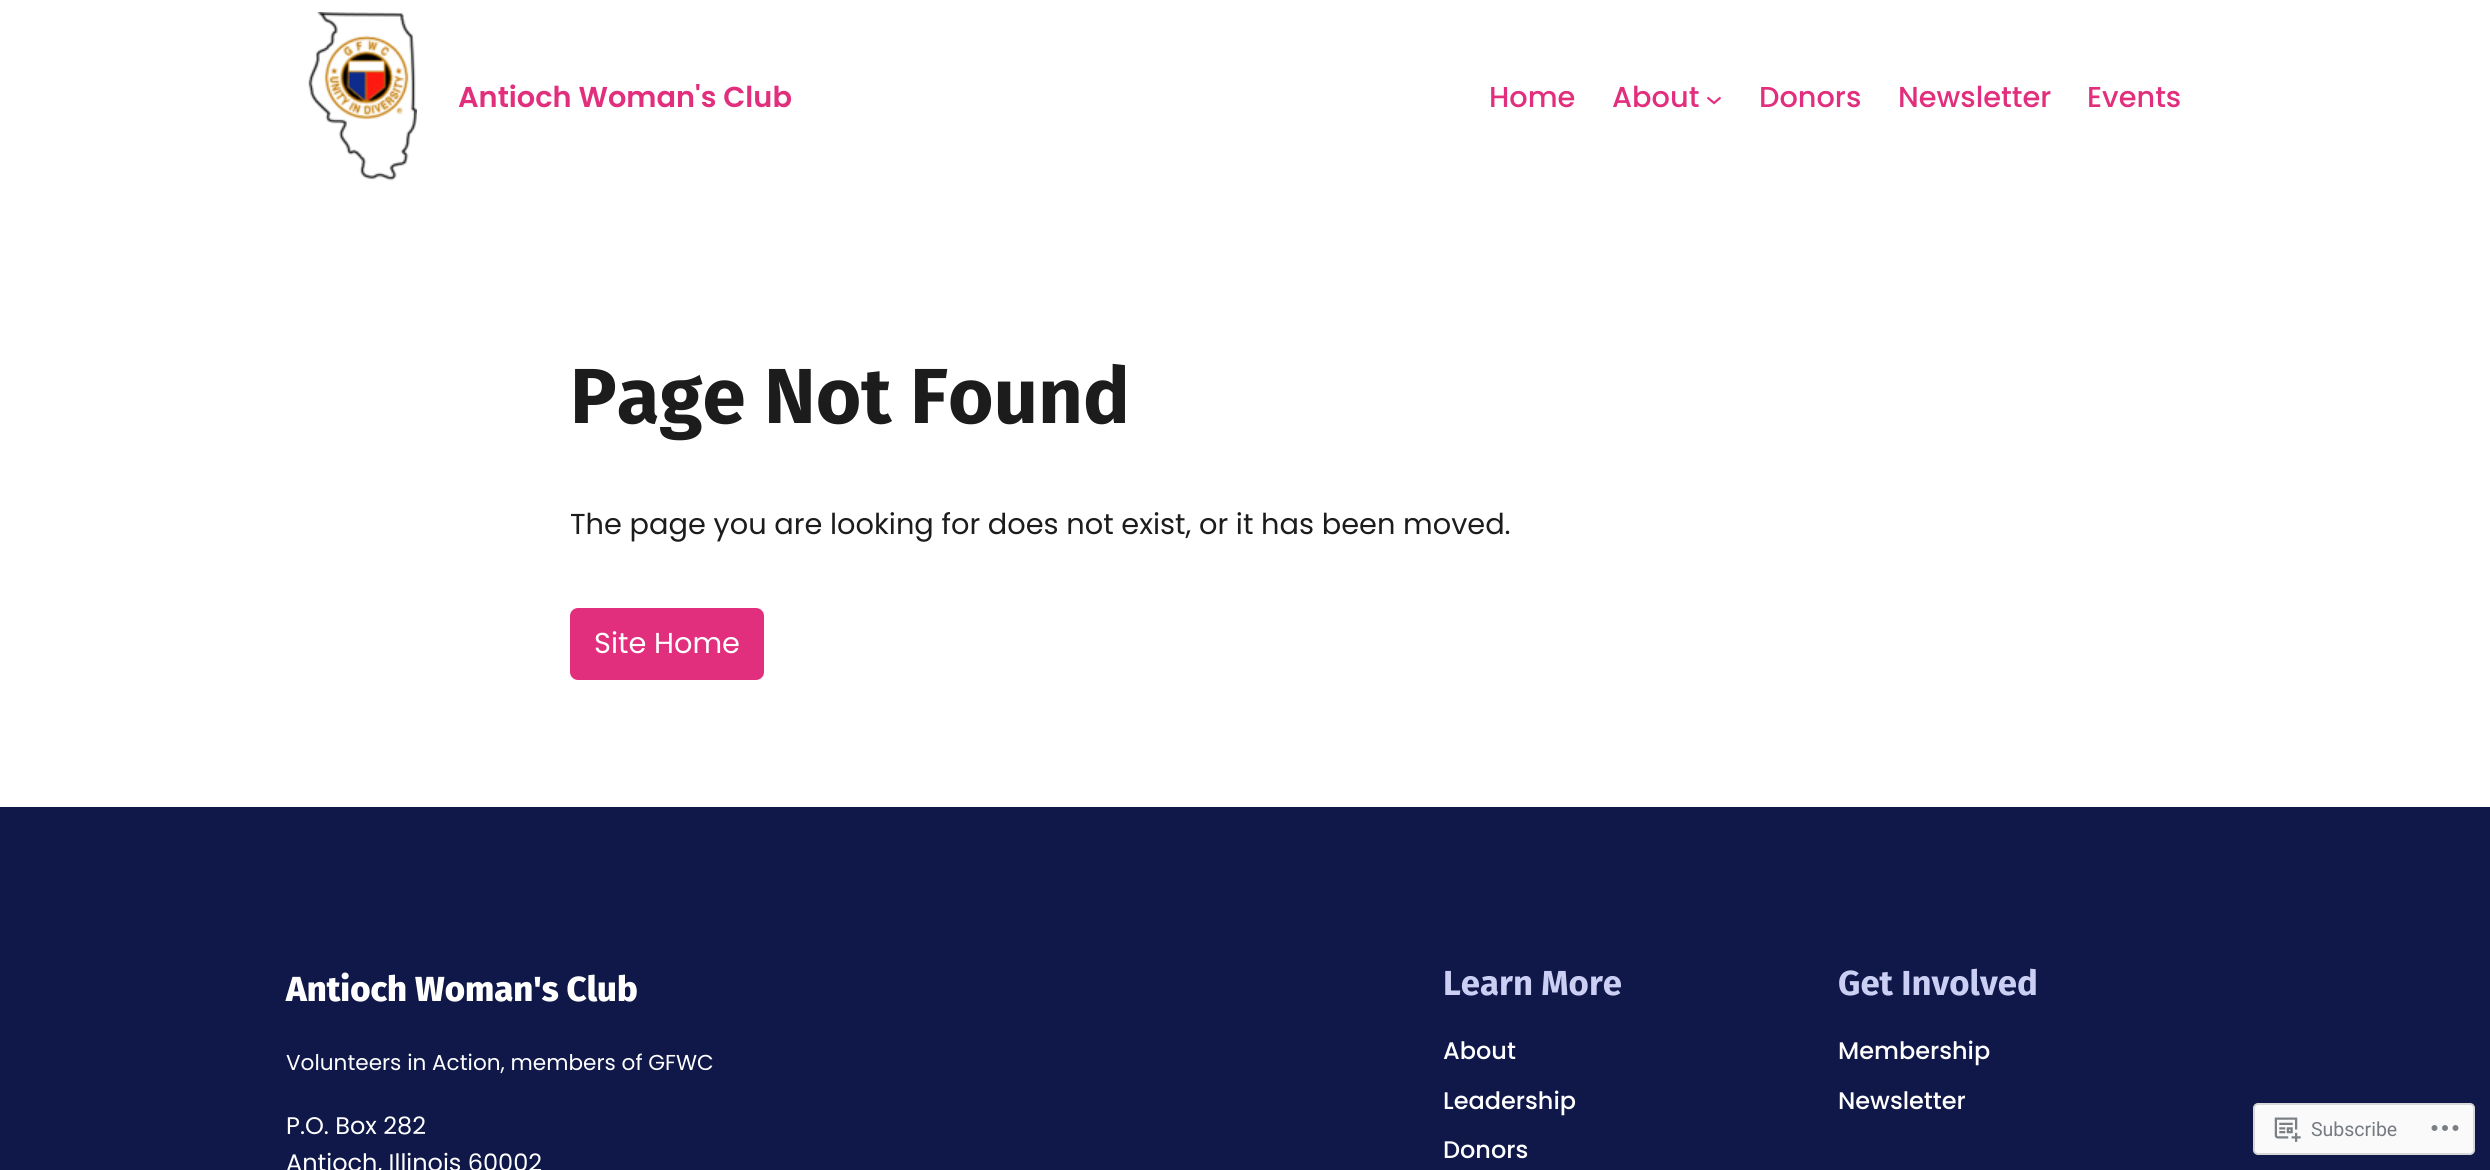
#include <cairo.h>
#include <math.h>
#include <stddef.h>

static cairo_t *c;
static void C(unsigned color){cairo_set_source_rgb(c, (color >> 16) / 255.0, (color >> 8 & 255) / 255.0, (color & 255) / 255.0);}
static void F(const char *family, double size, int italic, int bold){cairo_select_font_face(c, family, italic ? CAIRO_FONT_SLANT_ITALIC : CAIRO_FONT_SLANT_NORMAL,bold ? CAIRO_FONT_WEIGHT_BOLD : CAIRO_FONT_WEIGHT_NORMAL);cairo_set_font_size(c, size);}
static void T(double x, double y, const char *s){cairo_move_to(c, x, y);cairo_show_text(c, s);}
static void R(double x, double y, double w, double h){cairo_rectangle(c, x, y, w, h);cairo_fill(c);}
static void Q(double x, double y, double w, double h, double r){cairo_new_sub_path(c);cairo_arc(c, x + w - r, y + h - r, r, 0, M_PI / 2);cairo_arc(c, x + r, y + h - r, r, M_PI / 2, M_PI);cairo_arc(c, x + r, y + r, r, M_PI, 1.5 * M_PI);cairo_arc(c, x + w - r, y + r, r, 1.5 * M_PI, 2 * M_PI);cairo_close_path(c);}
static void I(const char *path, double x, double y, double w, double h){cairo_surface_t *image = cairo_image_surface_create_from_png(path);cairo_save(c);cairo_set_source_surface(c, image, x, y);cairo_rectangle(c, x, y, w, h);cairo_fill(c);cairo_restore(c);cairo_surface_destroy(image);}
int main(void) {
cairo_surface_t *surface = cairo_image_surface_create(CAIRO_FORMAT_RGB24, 2490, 1170);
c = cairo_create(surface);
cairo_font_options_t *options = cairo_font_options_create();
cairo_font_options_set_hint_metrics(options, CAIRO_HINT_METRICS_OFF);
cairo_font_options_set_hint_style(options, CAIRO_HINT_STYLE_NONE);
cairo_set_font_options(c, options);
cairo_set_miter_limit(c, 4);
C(0xffffff);
cairo_paint(c);
I("1.png",308,12,109,169);
F("Poppins SemiBold",28.8,0,0);
C(0xe12f7d);
T(458,107,"Antioch Woman's Club");
F("Poppins Medium",28.8,0,0);
T(1489,107,"Home");
T(1612,107,"About");
cairo_new_path(c);
cairo_move_to(c,1707.5,97.5);
cairo_line_to(c,1714,103);
cairo_line_to(c,1720.5,97.5);
cairo_set_line_width(c,2.2);
cairo_stroke(c);
T(1759,107,"Donors");
T(1898,107,"Newsletter");
T(2087,107,"Events");
F("Fira Sans",78,0,1);
C(0x1b1c1b);
T(570,423,"Page Not Found");
F("Poppins",28.8,0,0);
T(570,534,"The page you are looking for does not exist, or it has been moved.");
C(0xe12f7d);
Q(570,608,194,72,8);
cairo_fill(c);
C(0xffffff);
T(594,653,"Site Home");
C(0x0f1848);
R(0,807,2490,363);
F("Fira Sans ExtraBold",34.75,0,0);
C(0xffffff);
T(286,1001,"Antioch Woman's Club");
F("Poppins",21.6,0,0);
T(286,1070,"Volunteers in Action, members of GFWC");
F("Poppins",24,0,0);
T(286,1134,"P.O. Box 282");
T(286,1171,"Antioch, Illinois 60002");
F("Fira Sans",34.75,0,1);
C(0xcbcff4);
T(1443,995,"Learn More");
F("Poppins Medium",24,0,0);
C(0xffffff);
T(1443,1059,"About");
T(1443,1109,"Leadership");
T(1443,1158,"Donors");
F("Fira Sans",34.75,0,1);
C(0xcbcff4);
T(1838,995,"Get Involved");
F("Poppins Medium",24,0,0);
C(0xffffff);
T(1838,1059,"Membership");
T(1838,1109,"Newsletter");
C(0xfafafb);
Q(2254,1104,220,50,4);
cairo_fill_preserve(c);
C(0xd8d8db);
cairo_set_line_width(c,2);
cairo_stroke(c);
I("2.png",2274,1117,27,25);
F("Roboto",19.5,0,0);
C(0x767a81);
T(2311,1136,"Subscribe");
I("3.png",2431,1125,28,6);
cairo_surface_write_to_png(surface, "o.png");
cairo_font_options_destroy(options);
cairo_destroy(c);
cairo_surface_destroy(surface);
return 0;
}
